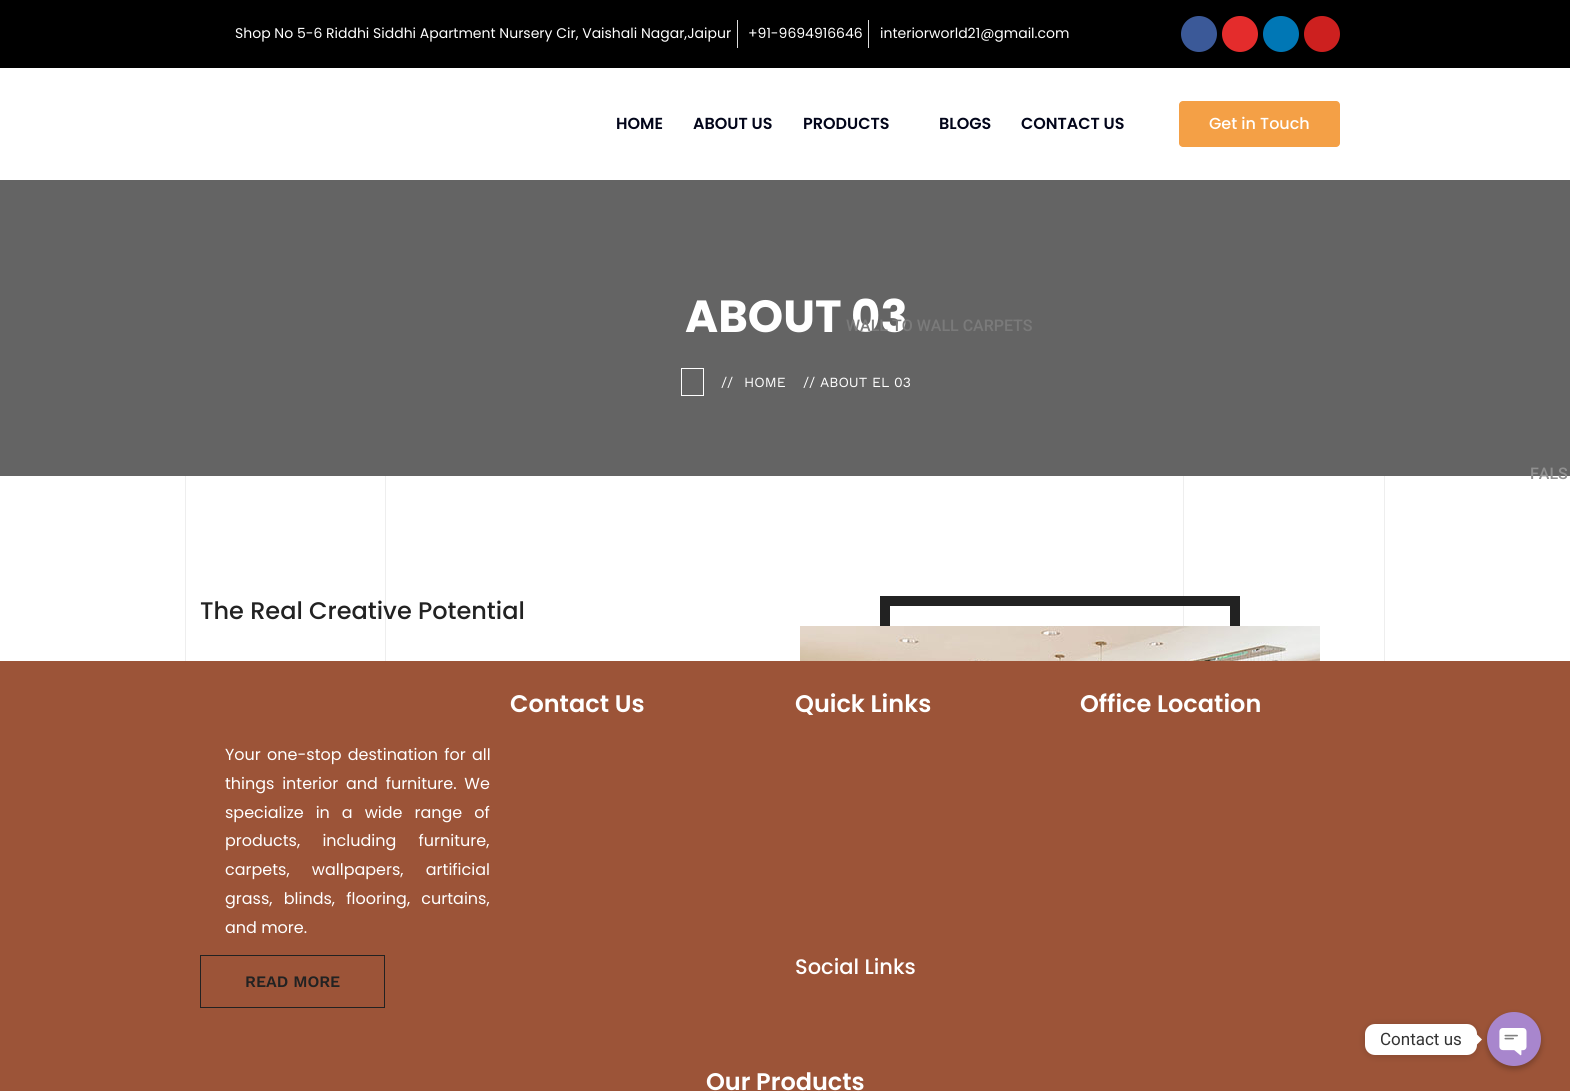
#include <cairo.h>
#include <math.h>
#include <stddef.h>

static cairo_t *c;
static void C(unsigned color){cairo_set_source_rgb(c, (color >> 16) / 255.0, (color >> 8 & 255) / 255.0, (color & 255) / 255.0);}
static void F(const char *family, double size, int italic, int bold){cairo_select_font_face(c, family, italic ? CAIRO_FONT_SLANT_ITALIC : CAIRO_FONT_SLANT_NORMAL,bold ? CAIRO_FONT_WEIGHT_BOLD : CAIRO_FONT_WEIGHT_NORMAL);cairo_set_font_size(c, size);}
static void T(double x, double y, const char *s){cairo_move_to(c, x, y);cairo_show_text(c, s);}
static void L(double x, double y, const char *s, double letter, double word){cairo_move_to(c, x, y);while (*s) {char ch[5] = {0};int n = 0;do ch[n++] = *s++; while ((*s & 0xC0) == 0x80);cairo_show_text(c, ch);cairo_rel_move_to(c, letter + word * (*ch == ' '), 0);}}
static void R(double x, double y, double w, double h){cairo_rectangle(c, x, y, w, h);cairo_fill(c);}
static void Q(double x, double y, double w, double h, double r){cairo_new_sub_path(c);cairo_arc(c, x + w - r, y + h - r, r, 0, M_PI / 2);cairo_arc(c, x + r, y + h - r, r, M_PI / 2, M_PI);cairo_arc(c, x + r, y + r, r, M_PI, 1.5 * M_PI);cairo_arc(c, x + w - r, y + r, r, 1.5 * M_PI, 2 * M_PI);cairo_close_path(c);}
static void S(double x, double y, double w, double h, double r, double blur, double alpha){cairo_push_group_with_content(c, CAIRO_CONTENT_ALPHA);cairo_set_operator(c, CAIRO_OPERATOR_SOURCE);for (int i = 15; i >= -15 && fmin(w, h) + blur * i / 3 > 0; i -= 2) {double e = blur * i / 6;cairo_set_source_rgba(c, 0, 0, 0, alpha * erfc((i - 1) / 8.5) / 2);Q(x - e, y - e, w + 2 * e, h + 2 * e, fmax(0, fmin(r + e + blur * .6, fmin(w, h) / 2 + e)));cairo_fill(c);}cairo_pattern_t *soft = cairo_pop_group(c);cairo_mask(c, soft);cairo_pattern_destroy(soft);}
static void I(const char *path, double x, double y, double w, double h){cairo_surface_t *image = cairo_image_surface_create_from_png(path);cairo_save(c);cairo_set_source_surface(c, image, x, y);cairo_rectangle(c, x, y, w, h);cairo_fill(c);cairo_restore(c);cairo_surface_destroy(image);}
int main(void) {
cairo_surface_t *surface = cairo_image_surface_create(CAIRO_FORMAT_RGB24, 1570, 1091);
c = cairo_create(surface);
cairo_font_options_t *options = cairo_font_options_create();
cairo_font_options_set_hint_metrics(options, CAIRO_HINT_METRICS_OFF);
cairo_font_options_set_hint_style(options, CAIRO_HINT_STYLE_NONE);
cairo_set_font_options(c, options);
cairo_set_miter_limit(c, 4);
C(0xffffff);
cairo_paint(c);
C(0x000000);
R(0,0,1570,68);
F("Poppins",14,0,0);
C(0xffffff);
T(235,38,"Shop No 5-6 Riddhi Siddhi Apartment Nursery Cir, Vaishali Nagar,Jaipur");
C(0xdddddd);
R(737,20,1,28);
C(0xffffff);
T(748,38,"+91-9694916646");
C(0xdddddd);
R(868,20,1,28);
C(0xffffff);
T(880,38,"interiorworld21@gmail.com");
C(0x3b5998);
cairo_new_path(c);
cairo_arc(c,1199,34,18,0,2 * M_PI);
cairo_fill(c);
C(0xe42c2c);
cairo_arc(c,1240,34,18,0,2 * M_PI);
cairo_fill(c);
C(0x0077b5);
cairo_arc(c,1281,34,18,0,2 * M_PI);
cairo_fill(c);
C(0xcd201f);
cairo_arc(c,1322,34,18,0,2 * M_PI);
cairo_fill(c);
cairo_save(c);
cairo_rectangle(c,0,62,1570,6);
cairo_clip(c);
C(0x000000);
S(0,68,1570,112,0,3.5,.5);
cairo_restore(c);
C(0xf4a046);
Q(1179,101,161,46,4);
cairo_fill(c);
F("Poppins Medium",16,0,0);
C(0xffffff);
T(1209,129,"Get in Touch");
F("Poppins SemiBold",16,0,0);
C(0x02051a);
T(616,129,"HOME");
T(693,129,"ABOUT US");
T(803,129,"PRODUCTS");
C(0x646464);
R(0,180,1570,296);
F("Poppins",45,0,1);
C(0xffffff);
T(685,332,"ABOUT 03");
F("Roboto Medium",16,0,0);
C(0x7a7a7a);
T(846,331,"WALL TO WALL CARPETS");
C(0x909090);
T(1530,479,"FALS");
F("Poppins SemiBold",16,0,0);
C(0x02051a);
T(939,129,"BLOGS");
T(1021,129,"CONTACT US");
cairo_rectangle(c,681.5,368.5,22,27);
C(0xffffff);
cairo_set_line_width(c,1);
cairo_stroke(c);
F("Work Sans",14,0,0);
T(721,387,"//");
T(744,387,"HOME");
T(803,387,"// ABOUT EL 03");
C(0xeeeeee);
R(185,476,1,185);
R(385,476,1,185);
F("Poppins Medium",24,0,0);
C(0x222222);
T(200,619,"The Real Creative Potential");
C(0xeeeeee);
R(1183,476,1,150);
cairo_rectangle(c,885,601,350,430);
C(0x222222);
cairo_set_line_width(c,10);
cairo_stroke(c);
C(0x9c5438);
R(0,661,1570,430);
cairo_rectangle(c,200.5,955.5,184,52);
C(0x222222);
cairo_set_line_width(c,1);
cairo_stroke(c);
F("Work Sans SemiBold",16,0,0);
T(245,987,"READ MORE");
C(0xeeeeee);
R(1384,476,1,185);
I("1.png",800,626,520,35);
F("Poppins SemiBold",24,0,0);
C(0xffffff);
T(510,712,"Contact Us");
T(795,712,"Quick Links");
F("Poppins Medium",21,0,0);
T(795,974,"Social Links");
F("Poppins SemiBold",24,0,0);
T(1080,712,"Office Location");
F("Poppins",16,0,0);
L(225,760,"Your one-stop destination for all",0,2);
L(225,789,"things interior and furniture. We",0,3.5);
L(225,818,"specialize in a wide range of",0,7.75);
L(225,846,"products, including furniture,",0,18);
L(225,875,"carpets, wallpapers, artificial",0,18);
L(225,904,"grass, blinds, flooring, curtains,",0,7);
T(225,933,"and more.");
F("Poppins SemiBold",24,0,0);
T(706,1090,"Our Products");
C(0x000000);
S(1365,1025,112,31,10,4,.15);
C(0xffffff);
Q(1365,1024,112,31,10);
cairo_fill(c);
F("Roboto",17,0,0);
C(0x333333);
T(1380,1045,"Contact us");
C(0xffffff);
cairo_new_path(c);
cairo_move_to(c,1477,1044.5);
cairo_line_to(c,1477,1034.5);
cairo_line_to(c,1482,1039.5);
cairo_close_path(c);
cairo_fill(c);
C(0x000000);
S(1487,1015,54,54,27,3,.25);
I("2.png",1487,1012,54,54);
cairo_surface_write_to_png(surface, "o.png");
cairo_font_options_destroy(options);
cairo_destroy(c);
cairo_surface_destroy(surface);
return 0;
}
